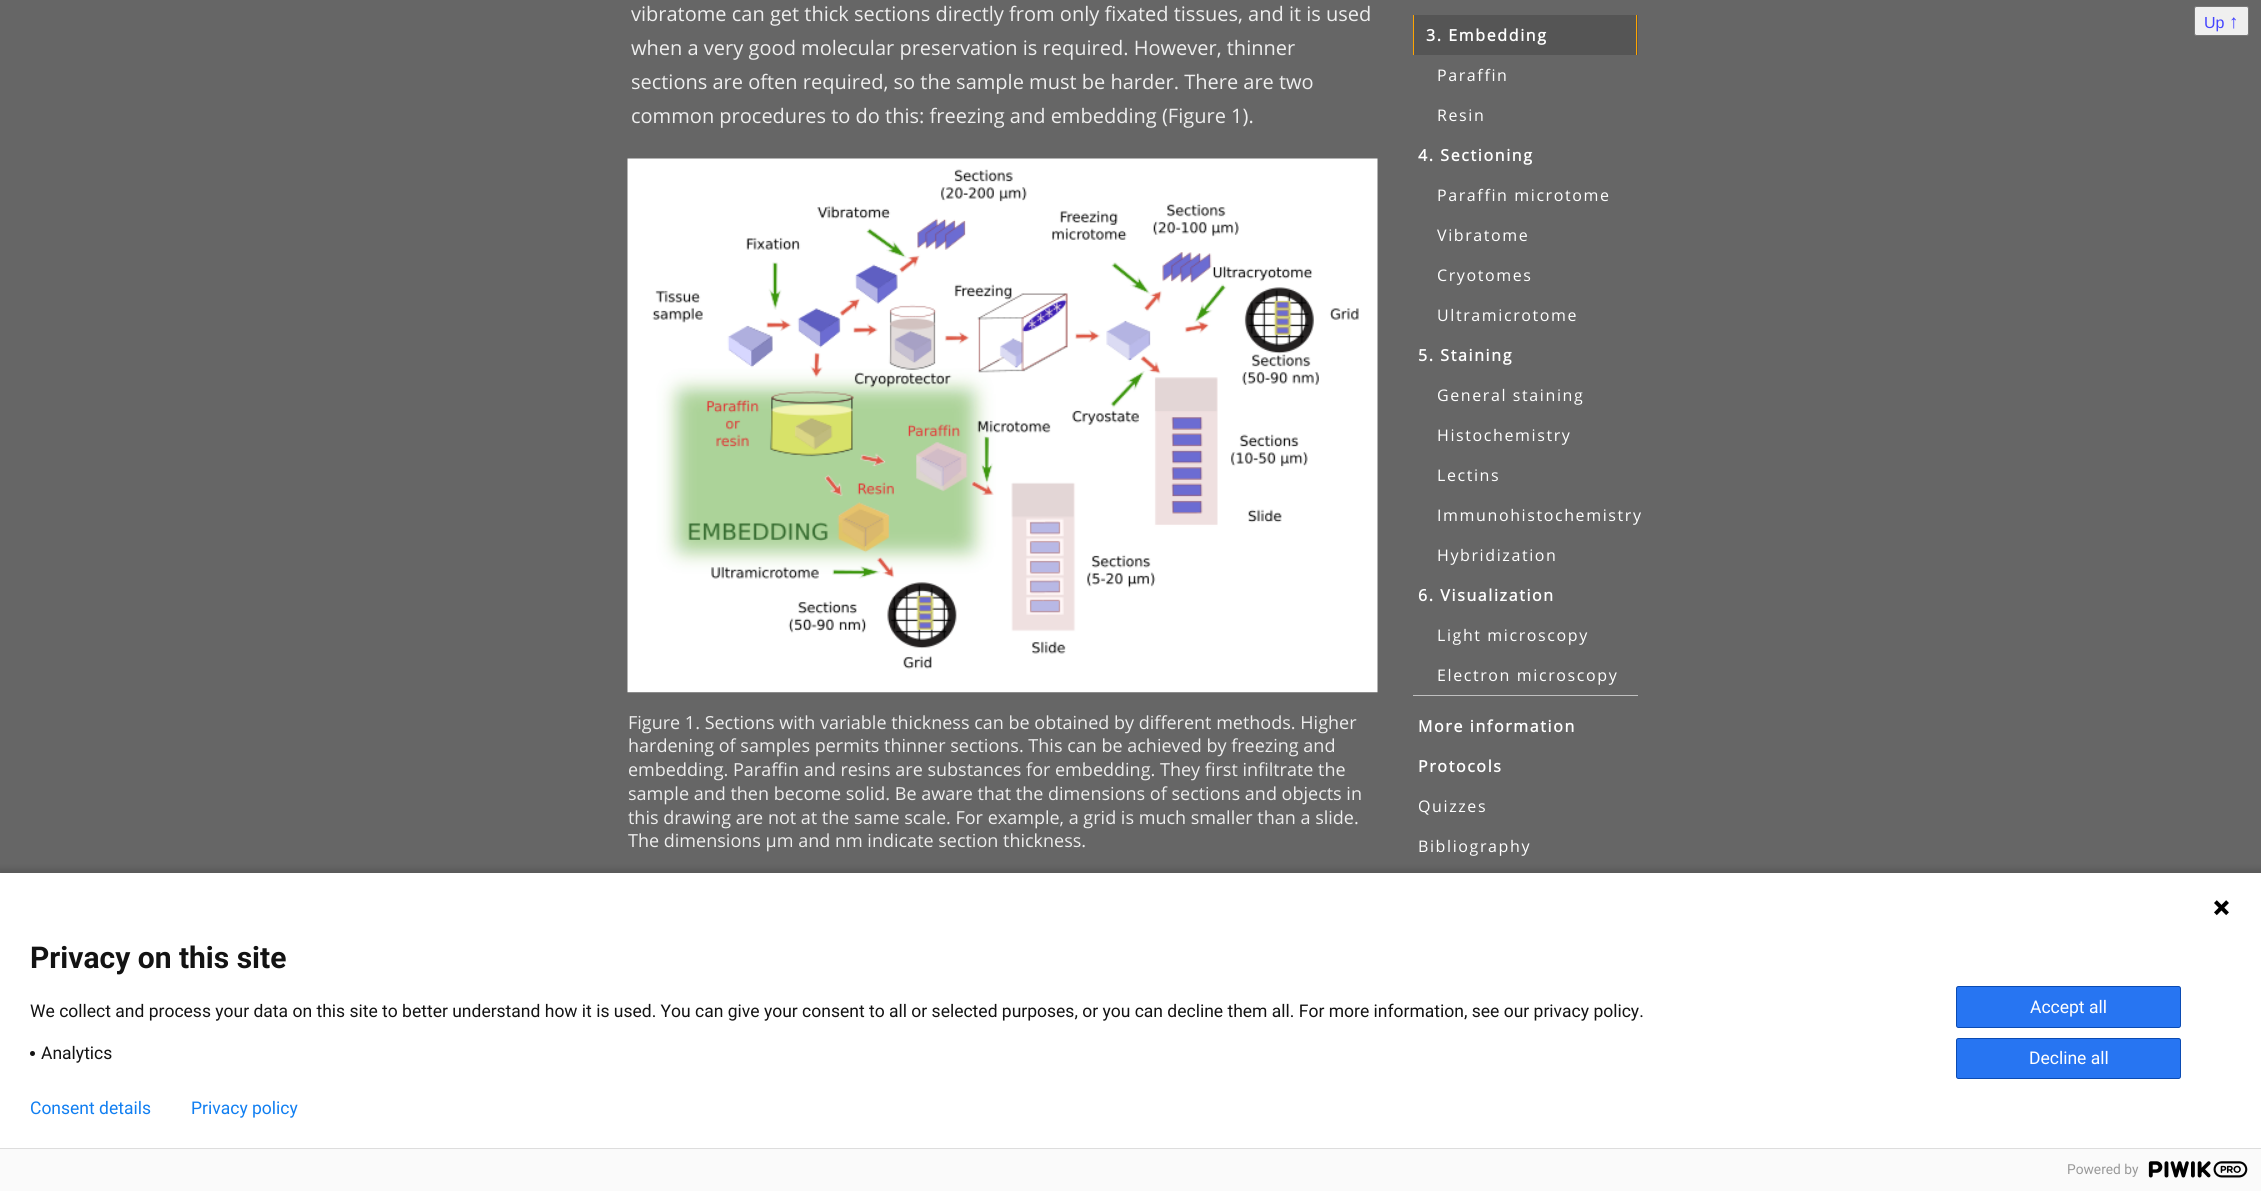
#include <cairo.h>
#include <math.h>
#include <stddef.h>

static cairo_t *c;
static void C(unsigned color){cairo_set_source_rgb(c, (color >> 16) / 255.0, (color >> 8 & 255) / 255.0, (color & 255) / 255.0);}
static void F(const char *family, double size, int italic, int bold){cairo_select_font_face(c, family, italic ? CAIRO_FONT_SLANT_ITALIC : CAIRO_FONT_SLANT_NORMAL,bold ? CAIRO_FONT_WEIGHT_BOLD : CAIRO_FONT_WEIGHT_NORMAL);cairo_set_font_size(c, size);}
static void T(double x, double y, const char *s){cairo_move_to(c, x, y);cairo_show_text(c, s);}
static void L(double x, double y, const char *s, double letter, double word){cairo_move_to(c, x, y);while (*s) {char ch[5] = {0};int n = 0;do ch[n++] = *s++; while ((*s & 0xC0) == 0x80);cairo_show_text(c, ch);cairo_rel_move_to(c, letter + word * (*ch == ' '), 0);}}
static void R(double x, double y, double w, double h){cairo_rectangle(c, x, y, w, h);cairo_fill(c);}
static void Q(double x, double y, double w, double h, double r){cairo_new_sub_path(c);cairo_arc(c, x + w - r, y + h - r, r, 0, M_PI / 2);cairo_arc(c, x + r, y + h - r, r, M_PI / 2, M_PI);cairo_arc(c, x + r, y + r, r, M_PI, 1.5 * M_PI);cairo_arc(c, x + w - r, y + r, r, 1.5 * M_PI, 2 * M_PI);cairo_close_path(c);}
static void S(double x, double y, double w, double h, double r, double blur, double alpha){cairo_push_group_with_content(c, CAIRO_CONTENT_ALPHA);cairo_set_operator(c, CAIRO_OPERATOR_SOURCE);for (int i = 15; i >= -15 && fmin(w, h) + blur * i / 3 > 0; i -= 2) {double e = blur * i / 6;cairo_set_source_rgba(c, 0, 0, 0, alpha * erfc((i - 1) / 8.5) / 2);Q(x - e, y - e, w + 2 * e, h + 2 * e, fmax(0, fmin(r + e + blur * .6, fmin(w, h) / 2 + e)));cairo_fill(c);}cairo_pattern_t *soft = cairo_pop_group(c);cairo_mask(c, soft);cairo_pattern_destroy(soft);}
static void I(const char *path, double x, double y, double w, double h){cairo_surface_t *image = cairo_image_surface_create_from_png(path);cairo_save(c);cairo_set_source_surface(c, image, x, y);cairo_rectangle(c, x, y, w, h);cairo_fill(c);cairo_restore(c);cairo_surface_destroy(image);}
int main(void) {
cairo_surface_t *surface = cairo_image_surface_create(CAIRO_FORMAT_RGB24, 2261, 1191);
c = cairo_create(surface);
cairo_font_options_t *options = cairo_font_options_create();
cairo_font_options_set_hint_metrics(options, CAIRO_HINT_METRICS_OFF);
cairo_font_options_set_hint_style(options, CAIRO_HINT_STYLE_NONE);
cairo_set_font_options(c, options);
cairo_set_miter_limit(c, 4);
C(0x666666);
cairo_paint(c);
F("Open Sans",20,0,0);
C(0xeeeeee);
T(631,21,"vibratome can get thick sections directly from only fixated tissues, and it is used");
T(631,55,"when a very good molecular preservation is required. However, thinner");
T(631,89,"sections are often required, so the sample must be harder. There are two");
T(631,123,"common procedures to do this: freezing and embedding (Figure 1).");
I("1.png",627,158,751,535);
F("Open Sans",18,0,0);
T(628,729,"Figure 1. Sections with variable thickness can be obtained by different methods. Higher");
T(628,752,"hardening of samples permits thinner sections. This can be achieved by freezing and");
T(628,776,"embedding. Paraffin and resins are substances for embedding. They first infiltrate the");
T(628,800,"sample and then become solid. Be aware that the dimensions of sections and objects in");
T(628,824,"this drawing are not at the same scale. For example, a grid is much smaller than a slide.");
T(628,847,"The dimensions µm and nm indicate section thickness.");
C(0xefefef);
Q(2194.5,6.5,54,29,2);
cairo_fill_preserve(c);
C(0x767676);
cairo_set_line_width(c,1);
cairo_stroke(c);
F("Liberation Sans",16,0,0);
C(0x4444ff);
T(2204,28,"Up");
F("Liberation Sans",19,0,0);
T(2229,28,"↑");
C(0x555555);
R(1414,15,224,40);
C(0xffa500);
R(1636,15,1,40);
R(1413,15,1,40);
F("Open Sans",16,0,1);
C(0xffffff);
L(1426,41,"3. Embedding",1.6,0);
F("Open Sans",16,0,0);
L(1437,81,"Paraffin",1.6,0);
L(1437,121,"Resin",1.6,0);
F("Open Sans",16,0,1);
L(1418,161,"4. Sectioning",1.6,0);
F("Open Sans",16,0,0);
L(1437,201,"Paraffin microtome",1.6,0);
L(1437,241,"Vibratome",1.6,0);
L(1437,281,"Cryotomes",1.6,0);
L(1437,321,"Ultramicrotome",1.6,0);
F("Open Sans",16,0,1);
L(1418,361,"5. Staining",1.6,0);
F("Open Sans",16,0,0);
L(1437,401,"General staining",1.6,0);
L(1437,441,"Histochemistry",1.6,0);
L(1437,481,"Lectins",1.6,0);
L(1437,521,"Immunohistochemistry",1.6,0);
L(1437,561,"Hybridization",1.6,0);
F("Open Sans",16,0,1);
L(1418,601,"6. Visualization",1.6,0);
F("Open Sans",16,0,0);
L(1437,641,"Light microscopy",1.6,0);
L(1437,681,"Electron microscopy",1.6,0);
C(0xc0c0c0);
R(1413,695,225,1);
F("Open Sans",16,0,1);
C(0xffffff);
L(1418,732,"More information",1.6,0);
L(1418,772,"Protocols",1.6,0);
F("Open Sans",16,0,0);
L(1418,812,"Quizzes",1.6,0);
L(1418,852,"Bibliography",1.6,0);
C(0x000000);
S(-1,869,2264,321,0,3,.14);
C(0xffffff);
R(0,873,2261,275);
I("2.png",2214,900,15,16);
F("Roboto",30,0,1);
C(0x131313);
T(30,968,"Privacy on this site");
F("Roboto",17.5,0,0);
T(30,1017,"We collect and process your data on this site to better understand how it is used. You can give your consent to all or selected purposes, or you can decline them all. For more information, see our privacy policy.");
cairo_new_path(c);
cairo_arc(c,32.5,1053.5,2.5,0,2 * M_PI);
cairo_fill(c);
T(41,1059,"Analytics");
C(0x2775f2);
Q(1956.5,986.5,224,41,2);
cairo_fill_preserve(c);
C(0x0b4bb3);
cairo_stroke(c);
C(0xffffff);
T(2030,1013,"Accept all");
C(0x2775f2);
Q(1956.5,1038.5,224,40,2);
cairo_fill_preserve(c);
C(0x0b4bb3);
cairo_stroke(c);
C(0xffffff);
T(2029,1064,"Decline all");
C(0x107ef1);
T(30,1114,"Consent details");
T(191,1114,"Privacy policy");
C(0xfafafa);
R(0,1149,2261,42);
C(0xdddddd);
R(0,1148,2261,1);
F("Roboto",13.75,0,0);
C(0x999999);
T(2067,1174,"Powered by");
I("3.png",2148,1161,100,17);
cairo_surface_write_to_png(surface, "o.png");
cairo_font_options_destroy(options);
cairo_destroy(c);
cairo_surface_destroy(surface);
return 0;
}
